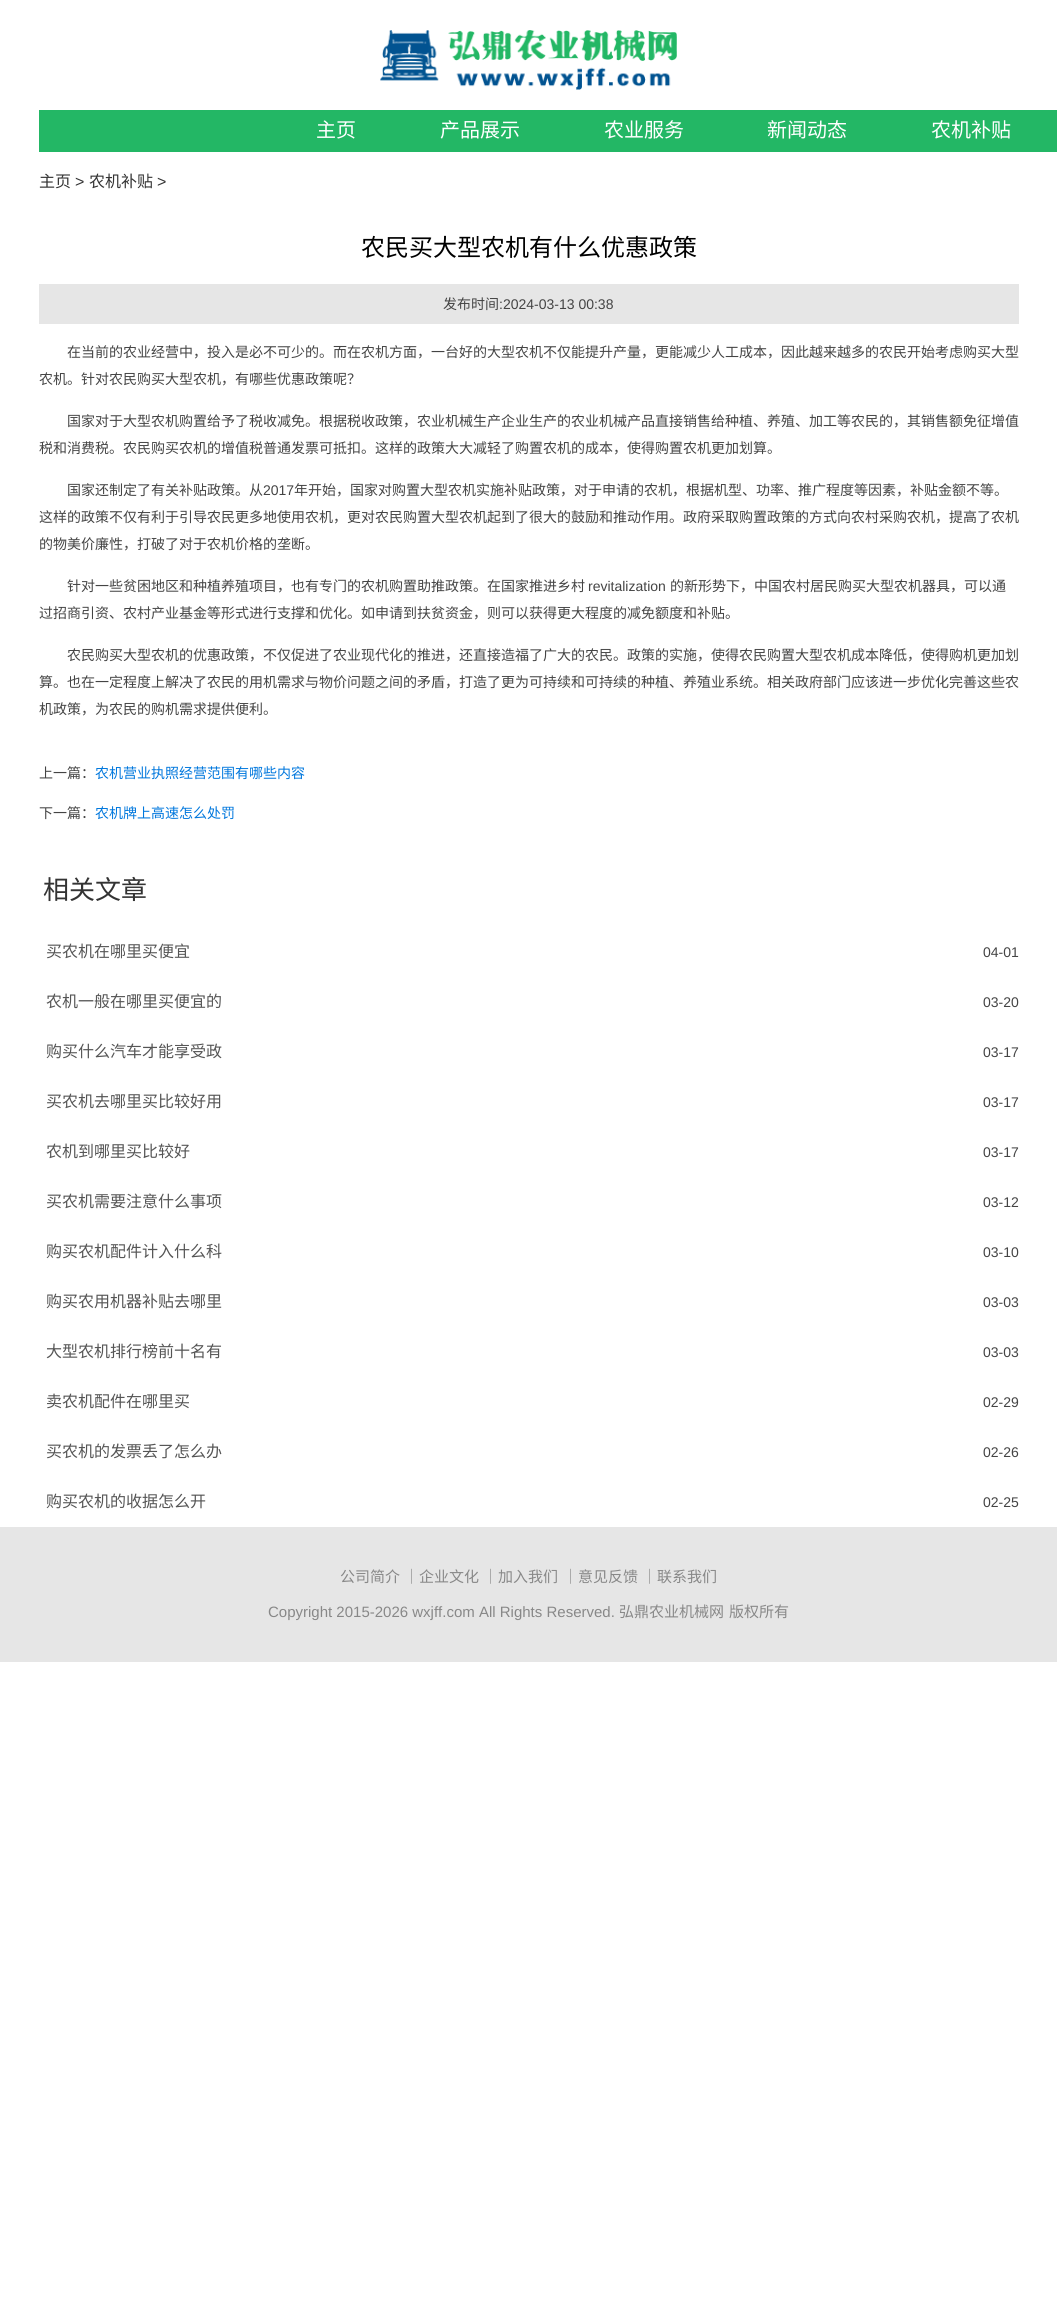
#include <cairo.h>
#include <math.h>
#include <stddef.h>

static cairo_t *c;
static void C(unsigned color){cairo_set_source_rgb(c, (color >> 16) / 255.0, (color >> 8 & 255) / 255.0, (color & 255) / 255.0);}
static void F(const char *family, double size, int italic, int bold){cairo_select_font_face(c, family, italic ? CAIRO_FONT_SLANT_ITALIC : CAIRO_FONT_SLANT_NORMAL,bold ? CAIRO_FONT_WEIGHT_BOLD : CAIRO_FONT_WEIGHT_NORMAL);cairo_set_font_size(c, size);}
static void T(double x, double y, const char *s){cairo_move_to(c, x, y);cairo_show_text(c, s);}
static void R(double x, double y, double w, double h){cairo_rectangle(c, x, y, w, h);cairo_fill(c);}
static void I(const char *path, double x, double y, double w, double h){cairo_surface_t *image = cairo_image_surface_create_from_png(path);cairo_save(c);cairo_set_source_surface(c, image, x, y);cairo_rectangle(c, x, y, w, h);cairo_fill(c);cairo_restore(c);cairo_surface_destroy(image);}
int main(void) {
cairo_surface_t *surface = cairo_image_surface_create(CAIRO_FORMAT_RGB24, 1057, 2308);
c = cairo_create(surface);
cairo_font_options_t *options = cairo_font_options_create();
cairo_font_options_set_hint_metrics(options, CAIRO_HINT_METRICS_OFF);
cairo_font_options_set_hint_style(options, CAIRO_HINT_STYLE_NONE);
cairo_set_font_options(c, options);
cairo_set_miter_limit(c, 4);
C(0xffffff);
cairo_paint(c);
I("1.png",380,30,297,60);
C(0x23b765);
R(39,110,1018,42);
F("Noto Sans CJK SC",20,0,0);
C(0xffffff);
T(316,137,"主页");
T(440,137,"产品展示");
T(604,137,"农业服务");
T(767,137,"新闻动态");
T(931,137,"农机补贴");
F("Noto Sans CJK SC",16,0,0);
C(0x333333);
T(39,187,"主页");
F("Liberation Sans",16,0,0);
T(75,187,">");
F("Noto Sans CJK SC",16,0,0);
T(89,187,"农机补贴");
F("Liberation Sans",16,0,0);
T(157,187,">");
F("Noto Sans CJK SC",24,0,0);
C(0x000000);
T(361,256,"农民买大型农机有什么优惠政策");
C(0xe6e6e6);
R(39,284,980,40);
F("Noto Sans CJK SC",14,0,0);
C(0x444444);
T(443,309,"发布时间");
F("Liberation Sans",14,0,0);
T(499,309,":2024-03-13 00:38");
F("Noto Sans CJK SC",14,0,0);
T(67,357,"在当前的农业经营中，投入是必不可少的。而在农机方面，一台好的大型农机不仅能提升产量，更能减少人工成本，因此越来越多的农民开始考虑购买大型");
T(39,384,"农机。针对农民购买大型农机，有哪些优惠政策呢？");
T(67,426,"国家对于大型农机购置给予了税收减免。根据税收政策，农业机械生产企业生产的农业机械产品直接销售给种植、养殖、加工等农民的，其销售额免征增值");
T(39,453,"税和消费税。农民购买农机的增值税普通发票可抵扣。这样的政策大大减轻了购置农机的成本，使得购置农机更加划算。");
T(67,495,"国家还制定了有关补贴政策。从");
F("Liberation Sans",14,0,0);
T(263,495,"2017");
F("Noto Sans CJK SC",14,0,0);
T(294,495,"年开始，国家对购置大型农机实施补贴政策，对于申请的农机，根据机型、功率、推广程度等因素，补贴金额不等。");
T(39,522,"这样的政策不仅有利于引导农民更多地使用农机，更对农民购置大型农机起到了很大的鼓励和推动作用。政府采取购置政策的方式向农村采购农机，提高了农机");
T(39,549,"的物美价廉性，打破了对于农机价格的垄断。");
T(67,591,"针对一些贫困地区和种植养殖项目，也有专门的农机购置助推政策。在国家推进乡村");
F("Liberation Sans",14,0,0);
T(588,591,"revitalization");
F("Noto Sans CJK SC",14,0,0);
T(670,591,"的新形势下，中国农村居民购买大型农机器具，可以通");
T(39,618,"过招商引资、农村产业基金等形式进行支撑和优化。如申请到扶贫资金，则可以获得更大程度的减免额度和补贴。");
T(67,660,"农民购买大型农机的优惠政策，不仅促进了农业现代化的推进，还直接造福了广大的农民。政策的实施，使得农民购置大型农机成本降低，使得购机更加划");
T(39,687,"算。也在一定程度上解决了农民的用机需求与物价问题之间的矛盾，打造了更为可持续和可持续的种植、养殖业系统。相关政府部门应该进一步优化完善这些农");
T(39,714,"机政策，为农民的购机需求提供便利。");
T(39,778,"上一篇：");
C(0x0077dd);
T(95,778,"农机营业执照经营范围有哪些内容");
C(0x444444);
T(39,818,"下一篇：");
C(0x0077dd);
T(95,818,"农机牌上高速怎么处罚");
F("Noto Sans CJK SC",26,0,0);
C(0x333333);
T(43,899,"相关文章");
F("Noto Sans CJK SC",16,0,0);
C(0x555555);
T(46,957,"买农机在哪里买便宜");
F("Liberation Sans",14,0,0);
C(0x444444);
T(983,957,"04-01");
F("Noto Sans CJK SC",16,0,0);
C(0x555555);
T(46,1007,"农机一般在哪里买便宜的");
F("Liberation Sans",14,0,0);
C(0x444444);
T(983,1007,"03-20");
F("Noto Sans CJK SC",16,0,0);
C(0x555555);
T(46,1057,"购买什么汽车才能享受政");
F("Liberation Sans",14,0,0);
C(0x444444);
T(983,1057,"03-17");
F("Noto Sans CJK SC",16,0,0);
C(0x555555);
T(46,1107,"买农机去哪里买比较好用");
F("Liberation Sans",14,0,0);
C(0x444444);
T(983,1107,"03-17");
F("Noto Sans CJK SC",16,0,0);
C(0x555555);
T(46,1157,"农机到哪里买比较好");
F("Liberation Sans",14,0,0);
C(0x444444);
T(983,1157,"03-17");
F("Noto Sans CJK SC",16,0,0);
C(0x555555);
T(46,1207,"买农机需要注意什么事项");
F("Liberation Sans",14,0,0);
C(0x444444);
T(983,1207,"03-12");
F("Noto Sans CJK SC",16,0,0);
C(0x555555);
T(46,1257,"购买农机配件计入什么科");
F("Liberation Sans",14,0,0);
C(0x444444);
T(983,1257,"03-10");
F("Noto Sans CJK SC",16,0,0);
C(0x555555);
T(46,1307,"购买农用机器补贴去哪里");
F("Liberation Sans",14,0,0);
C(0x444444);
T(983,1307,"03-03");
F("Noto Sans CJK SC",16,0,0);
C(0x555555);
T(46,1357,"大型农机排行榜前十名有");
F("Liberation Sans",14,0,0);
C(0x444444);
T(983,1357,"03-03");
F("Noto Sans CJK SC",16,0,0);
C(0x555555);
T(46,1407,"卖农机配件在哪里买");
F("Liberation Sans",14,0,0);
C(0x444444);
T(983,1407,"02-29");
F("Noto Sans CJK SC",16,0,0);
C(0x555555);
T(46,1457,"买农机的发票丢了怎么办");
F("Liberation Sans",14,0,0);
C(0x444444);
T(983,1457,"02-26");
F("Noto Sans CJK SC",16,0,0);
C(0x555555);
T(46,1507,"购买农机的收据怎么开");
F("Liberation Sans",14,0,0);
C(0x444444);
T(983,1507,"02-25");
C(0xe6e6e6);
R(0,1527,1057,135);
F("Noto Sans CJK SC",15,0,0);
C(0x888888);
T(340,1582,"公司简介");
T(404,1582,"｜企业文化");
T(483,1582,"｜加入我们");
T(563,1582,"｜意见反馈");
T(642,1582,"｜联系我们");
F("Liberation Sans",15,0,0);
T(268,1617,"Copyright 2015-2026 wxjff.com All Rights Reserved.");
F("Noto Sans CJK SC",15,0,0);
T(619,1617,"弘鼎农业机械网");
T(729,1617,"版权所有");
cairo_surface_write_to_png(surface, "o.png");
cairo_font_options_destroy(options);
cairo_destroy(c);
cairo_surface_destroy(surface);
return 0;
}
